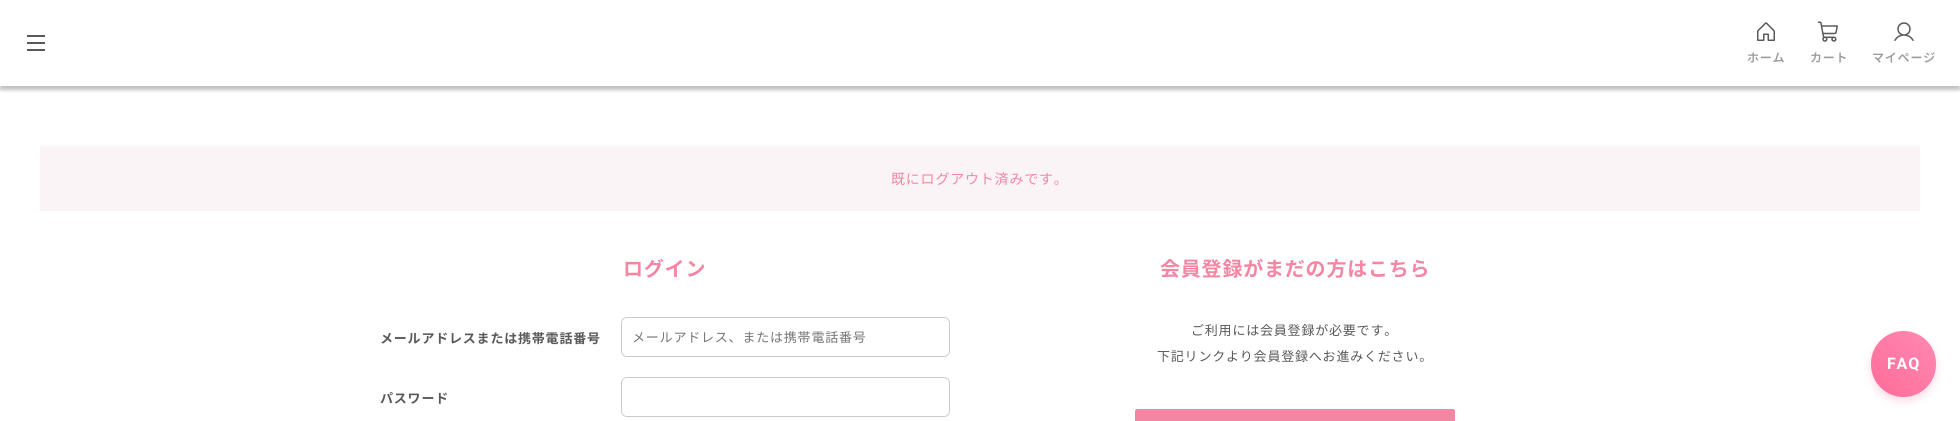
#include <cairo.h>
#include <math.h>
#include <stddef.h>

static cairo_t *c;
static void C(unsigned color){cairo_set_source_rgb(c, (color >> 16) / 255.0, (color >> 8 & 255) / 255.0, (color & 255) / 255.0);}
static void F(const char *family, double size, int italic, int bold){cairo_select_font_face(c, family, italic ? CAIRO_FONT_SLANT_ITALIC : CAIRO_FONT_SLANT_NORMAL,bold ? CAIRO_FONT_WEIGHT_BOLD : CAIRO_FONT_WEIGHT_NORMAL);cairo_set_font_size(c, size);}
static void L(double x, double y, const char *s, double letter, double word){cairo_move_to(c, x, y);while (*s) {char ch[5] = {0};int n = 0;do ch[n++] = *s++; while ((*s & 0xC0) == 0x80);cairo_show_text(c, ch);cairo_rel_move_to(c, letter + word * (*ch == ' '), 0);}}
static void R(double x, double y, double w, double h){cairo_rectangle(c, x, y, w, h);cairo_fill(c);}
static void Q(double x, double y, double w, double h, double r){cairo_new_sub_path(c);cairo_arc(c, x + w - r, y + h - r, r, 0, M_PI / 2);cairo_arc(c, x + r, y + h - r, r, M_PI / 2, M_PI);cairo_arc(c, x + r, y + r, r, M_PI, 1.5 * M_PI);cairo_arc(c, x + w - r, y + r, r, 1.5 * M_PI, 2 * M_PI);cairo_close_path(c);}
static void S(double x, double y, double w, double h, double r, double blur, double alpha){cairo_push_group_with_content(c, CAIRO_CONTENT_ALPHA);cairo_set_operator(c, CAIRO_OPERATOR_SOURCE);for (int i = 15; i >= -15 && fmin(w, h) + blur * i / 3 > 0; i -= 2) {double e = blur * i / 6;cairo_set_source_rgba(c, 0, 0, 0, alpha * erfc((i - 1) / 8.5) / 2);Q(x - e, y - e, w + 2 * e, h + 2 * e, fmax(0, fmin(r + e + blur * .6, fmin(w, h) / 2 + e)));cairo_fill(c);}cairo_pattern_t *soft = cairo_pop_group(c);cairo_mask(c, soft);cairo_pattern_destroy(soft);}
static void I(const char *path, double x, double y, double w, double h){cairo_surface_t *image = cairo_image_surface_create_from_png(path);cairo_save(c);cairo_set_source_surface(c, image, x, y);cairo_rectangle(c, x, y, w, h);cairo_fill(c);cairo_restore(c);cairo_surface_destroy(image);}
int main(void) {
cairo_surface_t *surface = cairo_image_surface_create(CAIRO_FORMAT_RGB24, 1960, 421);
c = cairo_create(surface);
cairo_font_options_t *options = cairo_font_options_create();
cairo_font_options_set_hint_metrics(options, CAIRO_HINT_METRICS_OFF);
cairo_font_options_set_hint_style(options, CAIRO_HINT_STYLE_NONE);
cairo_set_font_options(c, options);
cairo_set_miter_limit(c, 4);
cairo_pattern_t *gradient;
C(0xffffff);
cairo_paint(c);
cairo_save(c);
cairo_rectangle(c,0,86,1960,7);
cairo_clip(c);
C(0x000000);
S(0,4,1960,86,0,2,.25);
cairo_restore(c);
I("1.png",27,35,18,16);
I("2.png",1757,22,18,19);
F("Noto Sans JP SemiBold",12,0,0);
C(0x9b9b9b);
L(1747,62,"ホーム",.8,0);
I("3.png",1817,21,21,21);
L(1810,62,"カート",.8,0);
I("4.png",1894,22,20,19);
L(1872,62,"マイページ",.8,0);
C(0xfaf4f6);
R(40,146,1880,65);
F("Noto Sans JP",14,0,0);
C(0xf386a3);
L(891,184,"既にログアウト済みです。",.8,0);
F("Noto Sans JP",20,0,1);
L(623,276,"ログイン",.8,0);
F("Noto Sans JP",13,0,1);
C(0x595959);
L(380,343,"メールアドレスまたは携帯電話番号",.8,0);
Q(621.5,317.5,328,39,5.5);
C(0xcccccc);
cairo_set_line_width(c,1);
cairo_stroke(c);
F("Noto Sans JP",13,0,0);
C(0x757575);
L(632,342,"メールアドレス、または携帯電話番号",.8,0);
F("Noto Sans JP",13,0,1);
C(0x595959);
L(380,403,"パスワード",.8,0);
Q(621.5,377.5,328,39,5.5);
C(0xcccccc);
cairo_stroke(c);
F("Noto Sans JP",20,0,1);
C(0xf386a3);
L(1160,276,"会員登録がまだの方はこちら",.8,0);
F("Noto Sans JP",13,0,0);
C(0x595959);
L(1191,335,"ご利用には会員登録が必要です。",.8,0);
L(1157,361,"下記リンクより会員登録へお進みください。",.8,0);
C(0xf386a3);
Q(1135,409,320,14,2);
cairo_fill(c);
C(0xff6b98);
S(1871,335,65,66,32.5,4,.25);
gradient = cairo_pattern_create_linear(1871,397,1936,331);
cairo_pattern_add_color_stop_rgba(gradient,0,1,0.42,0.596,1);
cairo_pattern_add_color_stop_rgba(gradient,1,1,0.541,0.702,1);
cairo_set_source(c,gradient);
cairo_pattern_destroy(gradient);
Q(1871,331,65,66,32.5);
cairo_fill(c);
F("Roboto",16,0,1);
C(0xffffff);
L(1887,369,"FAQ",.8,0);
cairo_surface_write_to_png(surface, "o.png");
cairo_font_options_destroy(options);
cairo_destroy(c);
cairo_surface_destroy(surface);
return 0;
}
